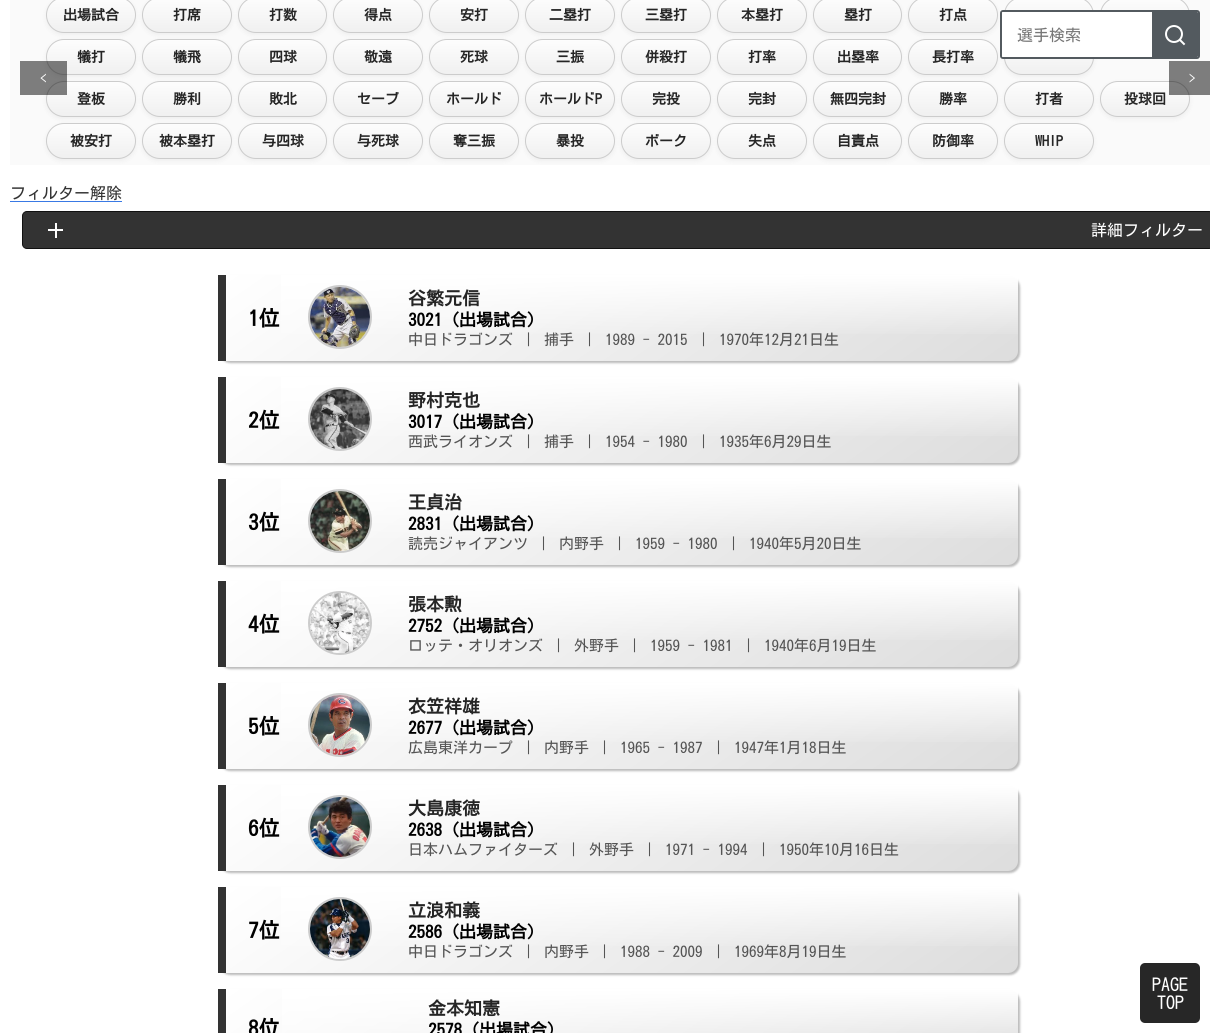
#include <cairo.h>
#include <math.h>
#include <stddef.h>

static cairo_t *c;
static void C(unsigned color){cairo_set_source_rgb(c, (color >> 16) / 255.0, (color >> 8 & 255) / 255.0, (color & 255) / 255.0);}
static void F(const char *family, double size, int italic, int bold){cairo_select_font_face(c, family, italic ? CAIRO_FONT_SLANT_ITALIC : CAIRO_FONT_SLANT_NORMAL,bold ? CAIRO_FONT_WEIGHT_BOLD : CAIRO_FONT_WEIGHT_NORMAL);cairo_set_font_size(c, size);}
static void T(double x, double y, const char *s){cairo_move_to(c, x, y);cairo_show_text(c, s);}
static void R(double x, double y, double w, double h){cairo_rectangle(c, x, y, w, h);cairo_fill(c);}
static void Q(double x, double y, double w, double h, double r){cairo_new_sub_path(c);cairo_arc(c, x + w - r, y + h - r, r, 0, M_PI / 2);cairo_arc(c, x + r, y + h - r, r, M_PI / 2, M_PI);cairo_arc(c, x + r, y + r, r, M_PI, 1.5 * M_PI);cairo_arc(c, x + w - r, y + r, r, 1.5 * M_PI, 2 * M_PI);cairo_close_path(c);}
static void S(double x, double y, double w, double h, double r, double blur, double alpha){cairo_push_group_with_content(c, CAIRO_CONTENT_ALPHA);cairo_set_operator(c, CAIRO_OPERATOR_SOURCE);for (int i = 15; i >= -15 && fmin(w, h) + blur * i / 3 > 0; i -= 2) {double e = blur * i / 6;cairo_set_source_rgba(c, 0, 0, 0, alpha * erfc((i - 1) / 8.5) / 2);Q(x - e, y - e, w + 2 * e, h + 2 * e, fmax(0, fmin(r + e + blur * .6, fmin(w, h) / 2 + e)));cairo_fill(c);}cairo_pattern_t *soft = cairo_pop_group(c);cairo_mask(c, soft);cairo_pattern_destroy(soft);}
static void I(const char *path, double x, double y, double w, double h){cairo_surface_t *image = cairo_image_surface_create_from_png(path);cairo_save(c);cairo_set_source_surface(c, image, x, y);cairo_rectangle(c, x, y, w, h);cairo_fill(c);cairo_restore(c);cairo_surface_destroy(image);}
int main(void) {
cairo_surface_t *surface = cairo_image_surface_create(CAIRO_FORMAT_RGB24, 1210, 1033);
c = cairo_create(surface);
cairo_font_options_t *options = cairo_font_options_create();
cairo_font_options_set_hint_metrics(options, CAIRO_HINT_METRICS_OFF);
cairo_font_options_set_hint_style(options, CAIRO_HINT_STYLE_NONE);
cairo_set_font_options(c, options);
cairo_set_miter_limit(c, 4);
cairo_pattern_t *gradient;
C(0xffffff);
cairo_paint(c);
C(0xfafafa);
R(10,0,1200,165);
C(0x000000);
S(46,-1,90,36,18,2.5,.05);
cairo_save(c);
Q(46,-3,90,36,18);
cairo_clip(c);
gradient = cairo_pattern_create_linear(91,-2,91,32);
cairo_pattern_add_color_stop_rgba(gradient,0,0.992,0.992,0.992,1);
cairo_pattern_add_color_stop_rgba(gradient,1,0.941,0.941,0.941,1);
cairo_set_source(c,gradient);
cairo_pattern_destroy(gradient);
R(46,0,90,32);
cairo_restore(c);
Q(46.5,-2.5,89,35,17.5);
C(0xcccccc);
cairo_set_line_width(c,1);
cairo_stroke(c);
C(0x000000);
S(142,-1,90,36,18,2.5,.05);
cairo_save(c);
Q(142,-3,90,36,18);
cairo_clip(c);
gradient = cairo_pattern_create_linear(187,-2,187,32);
cairo_pattern_add_color_stop_rgba(gradient,0,0.992,0.992,0.992,1);
cairo_pattern_add_color_stop_rgba(gradient,1,0.941,0.941,0.941,1);
cairo_set_source(c,gradient);
cairo_pattern_destroy(gradient);
R(142,0,90,32);
cairo_restore(c);
Q(142.5,-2.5,89,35,17.5);
C(0xcccccc);
cairo_stroke(c);
C(0x000000);
S(46,41,90,36,18,2.5,.05);
cairo_save(c);
Q(46,39,90,36,18);
cairo_clip(c);
gradient = cairo_pattern_create_linear(91,40,91,74);
cairo_pattern_add_color_stop_rgba(gradient,0,0.992,0.992,0.992,1);
cairo_pattern_add_color_stop_rgba(gradient,1,0.941,0.941,0.941,1);
cairo_set_source(c,gradient);
cairo_pattern_destroy(gradient);
R(46,40,90,34);
cairo_restore(c);
Q(46.5,39.5,89,35,17.5);
C(0xcccccc);
cairo_stroke(c);
C(0x000000);
S(238,-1,89,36,18,2.5,.05);
cairo_save(c);
Q(238,-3,89,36,18);
cairo_clip(c);
gradient = cairo_pattern_create_linear(283,-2,283,32);
cairo_pattern_add_color_stop_rgba(gradient,0,0.992,0.992,0.992,1);
cairo_pattern_add_color_stop_rgba(gradient,1,0.941,0.941,0.941,1);
cairo_set_source(c,gradient);
cairo_pattern_destroy(gradient);
R(238,0,89,32);
cairo_restore(c);
Q(238.5,-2.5,88,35,17.5);
C(0xcccccc);
cairo_stroke(c);
C(0x000000);
S(142,41,90,36,18,2.5,.05);
cairo_save(c);
Q(142,39,90,36,18);
cairo_clip(c);
gradient = cairo_pattern_create_linear(187,40,187,74);
cairo_pattern_add_color_stop_rgba(gradient,0,0.992,0.992,0.992,1);
cairo_pattern_add_color_stop_rgba(gradient,1,0.941,0.941,0.941,1);
cairo_set_source(c,gradient);
cairo_pattern_destroy(gradient);
R(142,40,90,34);
cairo_restore(c);
Q(142.5,39.5,89,35,17.5);
C(0xcccccc);
cairo_stroke(c);
C(0x000000);
S(46,83,90,36,18,2.5,.05);
cairo_save(c);
Q(46,81,90,36,18);
cairo_clip(c);
gradient = cairo_pattern_create_linear(91,82,91,116);
cairo_pattern_add_color_stop_rgba(gradient,0,0.992,0.992,0.992,1);
cairo_pattern_add_color_stop_rgba(gradient,1,0.941,0.941,0.941,1);
cairo_set_source(c,gradient);
cairo_pattern_destroy(gradient);
R(46,82,90,34);
cairo_restore(c);
Q(46.5,81.5,89,35,17.5);
C(0xcccccc);
cairo_stroke(c);
cairo_set_source_rgba(c,0,0,0,0.5);
R(20,61,47,34);
F("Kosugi",13,0,0);
C(0xffffff);
T(40,83,"<");
F("Kosugi",14,0,1);
C(0x252525);
T(63,20,"出場試合");
T(173,20,"打席");
T(269,20,"打数");
C(0x000000);
S(333,-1,90,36,18,2.5,.05);
cairo_save(c);
Q(333,-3,90,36,18);
cairo_clip(c);
gradient = cairo_pattern_create_linear(378,-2,378,32);
cairo_pattern_add_color_stop_rgba(gradient,0,0.992,0.992,0.992,1);
cairo_pattern_add_color_stop_rgba(gradient,1,0.941,0.941,0.941,1);
cairo_set_source(c,gradient);
cairo_pattern_destroy(gradient);
R(333,0,90,32);
cairo_restore(c);
Q(333.5,-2.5,89,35,17.5);
C(0xcccccc);
cairo_stroke(c);
C(0x252525);
T(364,20,"得点");
C(0x000000);
S(429,-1,90,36,18,2.5,.05);
cairo_save(c);
Q(429,-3,90,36,18);
cairo_clip(c);
gradient = cairo_pattern_create_linear(474,-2,474,32);
cairo_pattern_add_color_stop_rgba(gradient,0,0.992,0.992,0.992,1);
cairo_pattern_add_color_stop_rgba(gradient,1,0.941,0.941,0.941,1);
cairo_set_source(c,gradient);
cairo_pattern_destroy(gradient);
R(429,0,90,32);
cairo_restore(c);
Q(429.5,-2.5,89,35,17.5);
C(0xcccccc);
cairo_stroke(c);
C(0x252525);
T(460,20,"安打");
C(0x000000);
S(525,-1,90,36,18,2.5,.05);
cairo_save(c);
Q(525,-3,90,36,18);
cairo_clip(c);
gradient = cairo_pattern_create_linear(570,-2,570,32);
cairo_pattern_add_color_stop_rgba(gradient,0,0.992,0.992,0.992,1);
cairo_pattern_add_color_stop_rgba(gradient,1,0.941,0.941,0.941,1);
cairo_set_source(c,gradient);
cairo_pattern_destroy(gradient);
R(525,0,90,32);
cairo_restore(c);
Q(525.5,-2.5,89,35,17.5);
C(0xcccccc);
cairo_stroke(c);
C(0x252525);
T(549,20,"二塁打");
C(0x000000);
S(621,-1,90,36,18,2.5,.05);
cairo_save(c);
Q(621,-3,90,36,18);
cairo_clip(c);
gradient = cairo_pattern_create_linear(666,-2,666,32);
cairo_pattern_add_color_stop_rgba(gradient,0,0.992,0.992,0.992,1);
cairo_pattern_add_color_stop_rgba(gradient,1,0.941,0.941,0.941,1);
cairo_set_source(c,gradient);
cairo_pattern_destroy(gradient);
R(621,0,90,32);
cairo_restore(c);
Q(621.5,-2.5,89,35,17.5);
C(0xcccccc);
cairo_stroke(c);
C(0x252525);
T(645,20,"三塁打");
C(0x000000);
S(717,-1,90,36,18,2.5,.05);
cairo_save(c);
Q(717,-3,90,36,18);
cairo_clip(c);
gradient = cairo_pattern_create_linear(762,-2,762,32);
cairo_pattern_add_color_stop_rgba(gradient,0,0.992,0.992,0.992,1);
cairo_pattern_add_color_stop_rgba(gradient,1,0.941,0.941,0.941,1);
cairo_set_source(c,gradient);
cairo_pattern_destroy(gradient);
R(717,0,90,32);
cairo_restore(c);
Q(717.5,-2.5,89,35,17.5);
C(0xcccccc);
cairo_stroke(c);
C(0x252525);
T(741,20,"本塁打");
C(0x000000);
S(813,-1,89,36,18,2.5,.05);
cairo_save(c);
Q(813,-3,89,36,18);
cairo_clip(c);
gradient = cairo_pattern_create_linear(858,-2,858,32);
cairo_pattern_add_color_stop_rgba(gradient,0,0.992,0.992,0.992,1);
cairo_pattern_add_color_stop_rgba(gradient,1,0.941,0.941,0.941,1);
cairo_set_source(c,gradient);
cairo_pattern_destroy(gradient);
R(813,0,89,32);
cairo_restore(c);
Q(813.5,-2.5,88,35,17.5);
C(0xcccccc);
cairo_stroke(c);
C(0x252525);
T(844,20,"塁打");
C(0x000000);
S(908,-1,90,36,18,2.5,.05);
cairo_save(c);
Q(908,-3,90,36,18);
cairo_clip(c);
gradient = cairo_pattern_create_linear(953,-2,953,32);
cairo_pattern_add_color_stop_rgba(gradient,0,0.992,0.992,0.992,1);
cairo_pattern_add_color_stop_rgba(gradient,1,0.941,0.941,0.941,1);
cairo_set_source(c,gradient);
cairo_pattern_destroy(gradient);
R(908,0,90,32);
cairo_restore(c);
Q(908.5,-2.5,89,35,17.5);
C(0xcccccc);
cairo_stroke(c);
C(0x252525);
T(939,20,"打点");
cairo_save(c);
Q(1004,-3,90,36,18);
cairo_clip(c);
gradient = cairo_pattern_create_linear(1049,-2,1049,32);
cairo_pattern_add_color_stop_rgba(gradient,0,0.992,0.992,0.992,1);
cairo_pattern_add_color_stop_rgba(gradient,1,0.941,0.941,0.941,1);
cairo_set_source(c,gradient);
cairo_pattern_destroy(gradient);
R(1004,0,90,10);
cairo_restore(c);
Q(1004.5,-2.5,89,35,17.5);
C(0xcccccc);
cairo_stroke(c);
cairo_save(c);
Q(1100,-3,90,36,18);
cairo_clip(c);
gradient = cairo_pattern_create_linear(1145,-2,1145,32);
cairo_pattern_add_color_stop_rgba(gradient,0,0.992,0.992,0.992,1);
cairo_pattern_add_color_stop_rgba(gradient,1,0.941,0.941,0.941,1);
cairo_set_source(c,gradient);
cairo_pattern_destroy(gradient);
R(1100,0,90,10);
cairo_restore(c);
Q(1100.5,-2.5,89,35,17.5);
cairo_stroke(c);
C(0x252525);
T(77,62,"犠打");
T(173,62,"犠飛");
C(0x000000);
S(238,41,89,36,18,2.5,.05);
cairo_save(c);
Q(238,39,89,36,18);
cairo_clip(c);
gradient = cairo_pattern_create_linear(283,40,283,74);
cairo_pattern_add_color_stop_rgba(gradient,0,0.992,0.992,0.992,1);
cairo_pattern_add_color_stop_rgba(gradient,1,0.941,0.941,0.941,1);
cairo_set_source(c,gradient);
cairo_pattern_destroy(gradient);
R(238,40,89,34);
cairo_restore(c);
Q(238.5,39.5,88,35,17.5);
C(0xcccccc);
cairo_stroke(c);
C(0x252525);
T(269,62,"四球");
C(0x000000);
S(333,41,90,36,18,2.5,.05);
cairo_save(c);
Q(333,39,90,36,18);
cairo_clip(c);
gradient = cairo_pattern_create_linear(378,40,378,74);
cairo_pattern_add_color_stop_rgba(gradient,0,0.992,0.992,0.992,1);
cairo_pattern_add_color_stop_rgba(gradient,1,0.941,0.941,0.941,1);
cairo_set_source(c,gradient);
cairo_pattern_destroy(gradient);
R(333,40,90,34);
cairo_restore(c);
Q(333.5,39.5,89,35,17.5);
C(0xcccccc);
cairo_stroke(c);
C(0x252525);
T(364,62,"敬遠");
C(0x000000);
S(429,41,90,36,18,2.5,.05);
cairo_save(c);
Q(429,39,90,36,18);
cairo_clip(c);
gradient = cairo_pattern_create_linear(474,40,474,74);
cairo_pattern_add_color_stop_rgba(gradient,0,0.992,0.992,0.992,1);
cairo_pattern_add_color_stop_rgba(gradient,1,0.941,0.941,0.941,1);
cairo_set_source(c,gradient);
cairo_pattern_destroy(gradient);
R(429,40,90,34);
cairo_restore(c);
Q(429.5,39.5,89,35,17.5);
C(0xcccccc);
cairo_stroke(c);
C(0x252525);
T(460,62,"死球");
C(0x000000);
S(525,41,90,36,18,2.5,.05);
cairo_save(c);
Q(525,39,90,36,18);
cairo_clip(c);
gradient = cairo_pattern_create_linear(570,40,570,74);
cairo_pattern_add_color_stop_rgba(gradient,0,0.992,0.992,0.992,1);
cairo_pattern_add_color_stop_rgba(gradient,1,0.941,0.941,0.941,1);
cairo_set_source(c,gradient);
cairo_pattern_destroy(gradient);
R(525,40,90,34);
cairo_restore(c);
Q(525.5,39.5,89,35,17.5);
C(0xcccccc);
cairo_stroke(c);
C(0x252525);
T(556,62,"三振");
C(0x000000);
S(621,41,90,36,18,2.5,.05);
cairo_save(c);
Q(621,39,90,36,18);
cairo_clip(c);
gradient = cairo_pattern_create_linear(666,40,666,74);
cairo_pattern_add_color_stop_rgba(gradient,0,0.992,0.992,0.992,1);
cairo_pattern_add_color_stop_rgba(gradient,1,0.941,0.941,0.941,1);
cairo_set_source(c,gradient);
cairo_pattern_destroy(gradient);
R(621,40,90,34);
cairo_restore(c);
Q(621.5,39.5,89,35,17.5);
C(0xcccccc);
cairo_stroke(c);
C(0x252525);
T(645,62,"併殺打");
C(0x000000);
S(717,41,90,36,18,2.5,.05);
cairo_save(c);
Q(717,39,90,36,18);
cairo_clip(c);
gradient = cairo_pattern_create_linear(762,40,762,74);
cairo_pattern_add_color_stop_rgba(gradient,0,0.992,0.992,0.992,1);
cairo_pattern_add_color_stop_rgba(gradient,1,0.941,0.941,0.941,1);
cairo_set_source(c,gradient);
cairo_pattern_destroy(gradient);
R(717,40,90,34);
cairo_restore(c);
Q(717.5,39.5,89,35,17.5);
C(0xcccccc);
cairo_stroke(c);
C(0x252525);
T(748,62,"打率");
C(0x000000);
S(813,41,89,36,18,2.5,.05);
cairo_save(c);
Q(813,39,89,36,18);
cairo_clip(c);
gradient = cairo_pattern_create_linear(858,40,858,74);
cairo_pattern_add_color_stop_rgba(gradient,0,0.992,0.992,0.992,1);
cairo_pattern_add_color_stop_rgba(gradient,1,0.941,0.941,0.941,1);
cairo_set_source(c,gradient);
cairo_pattern_destroy(gradient);
R(813,40,89,34);
cairo_restore(c);
Q(813.5,39.5,88,35,17.5);
C(0xcccccc);
cairo_stroke(c);
C(0x252525);
T(837,62,"出塁率");
C(0x000000);
S(908,41,90,36,18,2.5,.05);
cairo_save(c);
Q(908,39,90,36,18);
cairo_clip(c);
gradient = cairo_pattern_create_linear(953,40,953,74);
cairo_pattern_add_color_stop_rgba(gradient,0,0.992,0.992,0.992,1);
cairo_pattern_add_color_stop_rgba(gradient,1,0.941,0.941,0.941,1);
cairo_set_source(c,gradient);
cairo_pattern_destroy(gradient);
R(908,40,90,34);
cairo_restore(c);
Q(908.5,39.5,89,35,17.5);
C(0xcccccc);
cairo_stroke(c);
C(0x252525);
T(932,62,"長打率");
C(0x000000);
S(1004,41,90,36,18,2.5,.05);
cairo_save(c);
Q(1004,39,90,36,18);
cairo_clip(c);
gradient = cairo_pattern_create_linear(1049,40,1049,74);
cairo_pattern_add_color_stop_rgba(gradient,0,0.992,0.992,0.992,1);
cairo_pattern_add_color_stop_rgba(gradient,1,0.941,0.941,0.941,1);
cairo_set_source(c,gradient);
cairo_pattern_destroy(gradient);
R(1004,59,90,15);
cairo_restore(c);
Q(1004.5,39.5,89,35,17.5);
C(0xcccccc);
cairo_stroke(c);
C(0x252525);
T(77,104,"登板");
C(0x000000);
S(142,83,90,36,18,2.5,.05);
cairo_save(c);
Q(142,81,90,36,18);
cairo_clip(c);
gradient = cairo_pattern_create_linear(187,82,187,116);
cairo_pattern_add_color_stop_rgba(gradient,0,0.992,0.992,0.992,1);
cairo_pattern_add_color_stop_rgba(gradient,1,0.941,0.941,0.941,1);
cairo_set_source(c,gradient);
cairo_pattern_destroy(gradient);
R(142,82,90,34);
cairo_restore(c);
Q(142.5,81.5,89,35,17.5);
C(0xcccccc);
cairo_stroke(c);
C(0x252525);
T(173,104,"勝利");
C(0x000000);
S(238,83,89,36,18,2.5,.05);
cairo_save(c);
Q(238,81,89,36,18);
cairo_clip(c);
gradient = cairo_pattern_create_linear(283,82,283,116);
cairo_pattern_add_color_stop_rgba(gradient,0,0.992,0.992,0.992,1);
cairo_pattern_add_color_stop_rgba(gradient,1,0.941,0.941,0.941,1);
cairo_set_source(c,gradient);
cairo_pattern_destroy(gradient);
R(238,82,89,34);
cairo_restore(c);
Q(238.5,81.5,88,35,17.5);
C(0xcccccc);
cairo_stroke(c);
C(0x252525);
T(269,104,"敗北");
C(0x000000);
S(333,83,90,36,18,2.5,.05);
cairo_save(c);
Q(333,81,90,36,18);
cairo_clip(c);
gradient = cairo_pattern_create_linear(378,82,378,116);
cairo_pattern_add_color_stop_rgba(gradient,0,0.992,0.992,0.992,1);
cairo_pattern_add_color_stop_rgba(gradient,1,0.941,0.941,0.941,1);
cairo_set_source(c,gradient);
cairo_pattern_destroy(gradient);
R(333,82,90,34);
cairo_restore(c);
Q(333.5,81.5,89,35,17.5);
C(0xcccccc);
cairo_stroke(c);
C(0x252525);
T(357,104,"セーブ");
C(0x000000);
S(429,83,90,36,18,2.5,.05);
cairo_save(c);
Q(429,81,90,36,18);
cairo_clip(c);
gradient = cairo_pattern_create_linear(474,82,474,116);
cairo_pattern_add_color_stop_rgba(gradient,0,0.992,0.992,0.992,1);
cairo_pattern_add_color_stop_rgba(gradient,1,0.941,0.941,0.941,1);
cairo_set_source(c,gradient);
cairo_pattern_destroy(gradient);
R(429,82,90,34);
cairo_restore(c);
Q(429.5,81.5,89,35,17.5);
C(0xcccccc);
cairo_stroke(c);
C(0x252525);
T(446,104,"ホールド");
C(0x000000);
S(525,83,90,36,18,2.5,.05);
cairo_save(c);
Q(525,81,90,36,18);
cairo_clip(c);
gradient = cairo_pattern_create_linear(570,82,570,116);
cairo_pattern_add_color_stop_rgba(gradient,0,0.992,0.992,0.992,1);
cairo_pattern_add_color_stop_rgba(gradient,1,0.941,0.941,0.941,1);
cairo_set_source(c,gradient);
cairo_pattern_destroy(gradient);
R(525,82,90,34);
cairo_restore(c);
Q(525.5,81.5,89,35,17.5);
C(0xcccccc);
cairo_stroke(c);
C(0x252525);
T(539,104,"ホールドP");
C(0x000000);
S(621,83,90,36,18,2.5,.05);
cairo_save(c);
Q(621,81,90,36,18);
cairo_clip(c);
gradient = cairo_pattern_create_linear(666,82,666,116);
cairo_pattern_add_color_stop_rgba(gradient,0,0.992,0.992,0.992,1);
cairo_pattern_add_color_stop_rgba(gradient,1,0.941,0.941,0.941,1);
cairo_set_source(c,gradient);
cairo_pattern_destroy(gradient);
R(621,82,90,34);
cairo_restore(c);
Q(621.5,81.5,89,35,17.5);
C(0xcccccc);
cairo_stroke(c);
C(0x252525);
T(652,104,"完投");
C(0x000000);
S(717,83,90,36,18,2.5,.05);
cairo_save(c);
Q(717,81,90,36,18);
cairo_clip(c);
gradient = cairo_pattern_create_linear(762,82,762,116);
cairo_pattern_add_color_stop_rgba(gradient,0,0.992,0.992,0.992,1);
cairo_pattern_add_color_stop_rgba(gradient,1,0.941,0.941,0.941,1);
cairo_set_source(c,gradient);
cairo_pattern_destroy(gradient);
R(717,82,90,34);
cairo_restore(c);
Q(717.5,81.5,89,35,17.5);
C(0xcccccc);
cairo_stroke(c);
C(0x252525);
T(748,104,"完封");
C(0x000000);
S(813,83,89,36,18,2.5,.05);
cairo_save(c);
Q(813,81,89,36,18);
cairo_clip(c);
gradient = cairo_pattern_create_linear(858,82,858,116);
cairo_pattern_add_color_stop_rgba(gradient,0,0.992,0.992,0.992,1);
cairo_pattern_add_color_stop_rgba(gradient,1,0.941,0.941,0.941,1);
cairo_set_source(c,gradient);
cairo_pattern_destroy(gradient);
R(813,82,89,34);
cairo_restore(c);
Q(813.5,81.5,88,35,17.5);
C(0xcccccc);
cairo_stroke(c);
C(0x252525);
T(830,104,"無四完封");
C(0x000000);
S(908,83,90,36,18,2.5,.05);
cairo_save(c);
Q(908,81,90,36,18);
cairo_clip(c);
gradient = cairo_pattern_create_linear(953,82,953,116);
cairo_pattern_add_color_stop_rgba(gradient,0,0.992,0.992,0.992,1);
cairo_pattern_add_color_stop_rgba(gradient,1,0.941,0.941,0.941,1);
cairo_set_source(c,gradient);
cairo_pattern_destroy(gradient);
R(908,82,90,34);
cairo_restore(c);
Q(908.5,81.5,89,35,17.5);
C(0xcccccc);
cairo_stroke(c);
C(0x252525);
T(939,104,"勝率");
C(0x000000);
S(1004,83,90,36,18,2.5,.05);
cairo_save(c);
Q(1004,81,90,36,18);
cairo_clip(c);
gradient = cairo_pattern_create_linear(1049,82,1049,116);
cairo_pattern_add_color_stop_rgba(gradient,0,0.992,0.992,0.992,1);
cairo_pattern_add_color_stop_rgba(gradient,1,0.941,0.941,0.941,1);
cairo_set_source(c,gradient);
cairo_pattern_destroy(gradient);
R(1004,82,90,34);
cairo_restore(c);
Q(1004.5,81.5,89,35,17.5);
C(0xcccccc);
cairo_stroke(c);
C(0x252525);
T(1035,104,"打者");
C(0x000000);
S(1100,83,90,36,18,2.5,.05);
cairo_save(c);
Q(1100,81,90,36,18);
cairo_clip(c);
gradient = cairo_pattern_create_linear(1145,82,1145,116);
cairo_pattern_add_color_stop_rgba(gradient,0,0.992,0.992,0.992,1);
cairo_pattern_add_color_stop_rgba(gradient,1,0.941,0.941,0.941,1);
cairo_set_source(c,gradient);
cairo_pattern_destroy(gradient);
R(1100,82,90,34);
cairo_restore(c);
Q(1100.5,81.5,89,35,17.5);
C(0xcccccc);
cairo_stroke(c);
C(0x252525);
T(1124,104,"投球回");
C(0x000000);
S(46,125,90,36,18,2.5,.05);
cairo_save(c);
Q(46,123,90,36,18);
cairo_clip(c);
gradient = cairo_pattern_create_linear(91,124,91,158);
cairo_pattern_add_color_stop_rgba(gradient,0,0.992,0.992,0.992,1);
cairo_pattern_add_color_stop_rgba(gradient,1,0.941,0.941,0.941,1);
cairo_set_source(c,gradient);
cairo_pattern_destroy(gradient);
R(46,124,90,34);
cairo_restore(c);
Q(46.5,123.5,89,35,17.5);
C(0xcccccc);
cairo_stroke(c);
C(0x252525);
T(70,146,"被安打");
C(0x000000);
S(142,125,90,36,18,2.5,.05);
cairo_save(c);
Q(142,123,90,36,18);
cairo_clip(c);
gradient = cairo_pattern_create_linear(187,124,187,158);
cairo_pattern_add_color_stop_rgba(gradient,0,0.992,0.992,0.992,1);
cairo_pattern_add_color_stop_rgba(gradient,1,0.941,0.941,0.941,1);
cairo_set_source(c,gradient);
cairo_pattern_destroy(gradient);
R(142,124,90,34);
cairo_restore(c);
Q(142.5,123.5,89,35,17.5);
C(0xcccccc);
cairo_stroke(c);
C(0x252525);
T(159,146,"被本塁打");
C(0x000000);
S(238,125,89,36,18,2.5,.05);
cairo_save(c);
Q(238,123,89,36,18);
cairo_clip(c);
gradient = cairo_pattern_create_linear(283,124,283,158);
cairo_pattern_add_color_stop_rgba(gradient,0,0.992,0.992,0.992,1);
cairo_pattern_add_color_stop_rgba(gradient,1,0.941,0.941,0.941,1);
cairo_set_source(c,gradient);
cairo_pattern_destroy(gradient);
R(238,124,89,34);
cairo_restore(c);
Q(238.5,123.5,88,35,17.5);
C(0xcccccc);
cairo_stroke(c);
C(0x252525);
T(262,146,"与四球");
C(0x000000);
S(333,125,90,36,18,2.5,.05);
cairo_save(c);
Q(333,123,90,36,18);
cairo_clip(c);
gradient = cairo_pattern_create_linear(378,124,378,158);
cairo_pattern_add_color_stop_rgba(gradient,0,0.992,0.992,0.992,1);
cairo_pattern_add_color_stop_rgba(gradient,1,0.941,0.941,0.941,1);
cairo_set_source(c,gradient);
cairo_pattern_destroy(gradient);
R(333,124,90,34);
cairo_restore(c);
Q(333.5,123.5,89,35,17.5);
C(0xcccccc);
cairo_stroke(c);
C(0x252525);
T(357,146,"与死球");
C(0x000000);
S(429,125,90,36,18,2.5,.05);
cairo_save(c);
Q(429,123,90,36,18);
cairo_clip(c);
gradient = cairo_pattern_create_linear(474,124,474,158);
cairo_pattern_add_color_stop_rgba(gradient,0,0.992,0.992,0.992,1);
cairo_pattern_add_color_stop_rgba(gradient,1,0.941,0.941,0.941,1);
cairo_set_source(c,gradient);
cairo_pattern_destroy(gradient);
R(429,124,90,34);
cairo_restore(c);
Q(429.5,123.5,89,35,17.5);
C(0xcccccc);
cairo_stroke(c);
C(0x252525);
T(453,146,"奪三振");
C(0x000000);
S(525,125,90,36,18,2.5,.05);
cairo_save(c);
Q(525,123,90,36,18);
cairo_clip(c);
gradient = cairo_pattern_create_linear(570,124,570,158);
cairo_pattern_add_color_stop_rgba(gradient,0,0.992,0.992,0.992,1);
cairo_pattern_add_color_stop_rgba(gradient,1,0.941,0.941,0.941,1);
cairo_set_source(c,gradient);
cairo_pattern_destroy(gradient);
R(525,124,90,34);
cairo_restore(c);
Q(525.5,123.5,89,35,17.5);
C(0xcccccc);
cairo_stroke(c);
C(0x252525);
T(556,146,"暴投");
C(0x000000);
S(621,125,90,36,18,2.5,.05);
cairo_save(c);
Q(621,123,90,36,18);
cairo_clip(c);
gradient = cairo_pattern_create_linear(666,124,666,158);
cairo_pattern_add_color_stop_rgba(gradient,0,0.992,0.992,0.992,1);
cairo_pattern_add_color_stop_rgba(gradient,1,0.941,0.941,0.941,1);
cairo_set_source(c,gradient);
cairo_pattern_destroy(gradient);
R(621,124,90,34);
cairo_restore(c);
Q(621.5,123.5,89,35,17.5);
C(0xcccccc);
cairo_stroke(c);
C(0x252525);
T(645,146,"ボーク");
C(0x000000);
S(717,125,90,36,18,2.5,.05);
cairo_save(c);
Q(717,123,90,36,18);
cairo_clip(c);
gradient = cairo_pattern_create_linear(762,124,762,158);
cairo_pattern_add_color_stop_rgba(gradient,0,0.992,0.992,0.992,1);
cairo_pattern_add_color_stop_rgba(gradient,1,0.941,0.941,0.941,1);
cairo_set_source(c,gradient);
cairo_pattern_destroy(gradient);
R(717,124,90,34);
cairo_restore(c);
Q(717.5,123.5,89,35,17.5);
C(0xcccccc);
cairo_stroke(c);
C(0x252525);
T(748,146,"失点");
C(0x000000);
S(813,125,89,36,18,2.5,.05);
cairo_save(c);
Q(813,123,89,36,18);
cairo_clip(c);
gradient = cairo_pattern_create_linear(858,124,858,158);
cairo_pattern_add_color_stop_rgba(gradient,0,0.992,0.992,0.992,1);
cairo_pattern_add_color_stop_rgba(gradient,1,0.941,0.941,0.941,1);
cairo_set_source(c,gradient);
cairo_pattern_destroy(gradient);
R(813,124,89,34);
cairo_restore(c);
Q(813.5,123.5,88,35,17.5);
C(0xcccccc);
cairo_stroke(c);
C(0x252525);
T(837,146,"自責点");
C(0x000000);
S(908,125,90,36,18,2.5,.05);
cairo_save(c);
Q(908,123,90,36,18);
cairo_clip(c);
gradient = cairo_pattern_create_linear(953,124,953,158);
cairo_pattern_add_color_stop_rgba(gradient,0,0.992,0.992,0.992,1);
cairo_pattern_add_color_stop_rgba(gradient,1,0.941,0.941,0.941,1);
cairo_set_source(c,gradient);
cairo_pattern_destroy(gradient);
R(908,124,90,34);
cairo_restore(c);
Q(908.5,123.5,89,35,17.5);
C(0xcccccc);
cairo_stroke(c);
C(0x252525);
T(932,146,"防御率");
C(0x000000);
S(1004,125,90,36,18,2.5,.05);
cairo_save(c);
Q(1004,123,90,36,18);
cairo_clip(c);
gradient = cairo_pattern_create_linear(1049,124,1049,158);
cairo_pattern_add_color_stop_rgba(gradient,0,0.992,0.992,0.992,1);
cairo_pattern_add_color_stop_rgba(gradient,1,0.941,0.941,0.941,1);
cairo_set_source(c,gradient);
cairo_pattern_destroy(gradient);
R(1004,124,90,34);
cairo_restore(c);
Q(1004.5,123.5,89,35,17.5);
C(0xcccccc);
cairo_stroke(c);
C(0x252525);
T(1035,146,"WHIP");
cairo_set_source_rgba(c,0,0,0,0.5);
R(1169,61,41,34);
F("Kosugi",13,0,0);
C(0xffffff);
T(1189,83,">");
F("Kosugi",16,0,0);
C(0x333333);
T(10,199,"フィルター解除");
C(0x3979e4);
R(10,201,112,1);
C(0x333333);
Q(22.5,211.5,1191,37,4.5);
cairo_fill_preserve(c);
C(0x111111);
cairo_stroke(c);
C(0xffffff);
R(48,229,15,2);
R(55,223,2,15);
T(1091,236,"詳細フィルター");
C(0xbcbcbc);
S(220,277,800,86,10,1,1);
gradient = cairo_pattern_create_linear(472,103,772,533);
cairo_pattern_add_color_stop_rgba(gradient,0,1,1,1,1);
cairo_pattern_add_color_stop_rgba(gradient,1,0.867,0.867,0.867,1);
cairo_set_source(c,gradient);
cairo_pattern_destroy(gradient);
cairo_new_path(c);
cairo_move_to(c,226,275);
cairo_line_to(c,1008,275);
cairo_curve_to(c,1013.5,275,1018,279.5,1018,285);
cairo_line_to(c,1018,351);
cairo_curve_to(c,1018,356.5,1013.5,361,1008,361);
cairo_line_to(c,226,361);
cairo_close_path(c);
cairo_fill(c);
C(0x333333);
R(218,275,8,86);
gradient = cairo_pattern_create_linear(622,275,622,339);
cairo_pattern_add_color_stop_rgba(gradient,0,1,1,1,1);
cairo_pattern_add_color_stop_rgba(gradient,1,1,1,1,0);
cairo_set_source(c,gradient);
cairo_pattern_destroy(gradient);
R(281,275,737,59);
F("Kosugi",21,0,1);
C(0x000000);
T(248,326,"1位");
cairo_new_path(c);
cairo_arc(c,340,317,31,0,2 * M_PI);
C(0xcccccc);
cairo_set_line_width(c,2);
cairo_stroke(c);
I("1.png",310,287,60,60);
F("Kosugi",18,0,1);
C(0x252525);
T(408,305,"谷繁元信");
F("Kosugi",17,0,1);
C(0x000000);
T(408,326,"3021（出場試合）");
F("Kosugi",15,0,0);
C(0x555555);
T(408,345,"中日ドラゴンズ");
T(521,345,"｜");
T(544,345,"捕手");
T(582,345,"｜");
T(605,345,"1989 - 2015");
T(696,345,"｜");
T(719,345,"1970年12月21日生");
C(0xbcbcbc);
S(220,379,800,86,10,1,1);
gradient = cairo_pattern_create_linear(472,205,772,635);
cairo_pattern_add_color_stop_rgba(gradient,0,1,1,1,1);
cairo_pattern_add_color_stop_rgba(gradient,1,0.867,0.867,0.867,1);
cairo_set_source(c,gradient);
cairo_pattern_destroy(gradient);
cairo_new_path(c);
cairo_move_to(c,226,377);
cairo_line_to(c,1008,377);
cairo_curve_to(c,1013.5,377,1018,381.5,1018,387);
cairo_line_to(c,1018,453);
cairo_curve_to(c,1018,458.5,1013.5,463,1008,463);
cairo_line_to(c,226,463);
cairo_close_path(c);
cairo_fill(c);
C(0x333333);
R(218,377,8,86);
gradient = cairo_pattern_create_linear(622,377,622,441);
cairo_pattern_add_color_stop_rgba(gradient,0,1,1,1,1);
cairo_pattern_add_color_stop_rgba(gradient,1,1,1,1,0);
cairo_set_source(c,gradient);
cairo_pattern_destroy(gradient);
R(281,377,737,59);
F("Kosugi",21,0,1);
C(0x000000);
T(248,428,"2位");
cairo_new_path(c);
cairo_arc(c,340,419,31,0,2 * M_PI);
C(0xcccccc);
cairo_stroke(c);
I("2.png",310,389,60,60);
F("Kosugi",18,0,1);
C(0x252525);
T(408,407,"野村克也");
F("Kosugi",17,0,1);
C(0x000000);
T(408,428,"3017（出場試合）");
F("Kosugi",15,0,0);
C(0x555555);
T(408,447,"西武ライオンズ");
T(521,447,"｜");
T(544,447,"捕手");
T(582,447,"｜");
T(605,447,"1954 - 1980");
T(696,447,"｜");
T(719,447,"1935年6月29日生");
C(0xbcbcbc);
S(220,481,800,86,10,1,1);
gradient = cairo_pattern_create_linear(472,307,772,737);
cairo_pattern_add_color_stop_rgba(gradient,0,1,1,1,1);
cairo_pattern_add_color_stop_rgba(gradient,1,0.867,0.867,0.867,1);
cairo_set_source(c,gradient);
cairo_pattern_destroy(gradient);
cairo_new_path(c);
cairo_move_to(c,226,479);
cairo_line_to(c,1008,479);
cairo_curve_to(c,1013.5,479,1018,483.5,1018,489);
cairo_line_to(c,1018,555);
cairo_curve_to(c,1018,560.5,1013.5,565,1008,565);
cairo_line_to(c,226,565);
cairo_close_path(c);
cairo_fill(c);
C(0x333333);
R(218,479,8,86);
gradient = cairo_pattern_create_linear(622,479,622,543);
cairo_pattern_add_color_stop_rgba(gradient,0,1,1,1,1);
cairo_pattern_add_color_stop_rgba(gradient,1,1,1,1,0);
cairo_set_source(c,gradient);
cairo_pattern_destroy(gradient);
R(281,479,737,59);
F("Kosugi",21,0,1);
C(0x000000);
T(248,530,"3位");
cairo_new_path(c);
cairo_arc(c,340,521,31,0,2 * M_PI);
C(0xcccccc);
cairo_stroke(c);
I("3.png",310,491,60,60);
F("Kosugi",18,0,1);
C(0x252525);
T(408,509,"王貞治");
F("Kosugi",17,0,1);
C(0x000000);
T(408,530,"2831（出場試合）");
F("Kosugi",15,0,0);
C(0x555555);
T(408,549,"読売ジャイアンツ");
T(536,549,"｜");
T(559,549,"内野手");
T(612,549,"｜");
T(635,549,"1959 - 1980");
T(726,549,"｜");
T(749,549,"1940年5月20日生");
C(0xbcbcbc);
S(220,583,800,86,10,1,1);
gradient = cairo_pattern_create_linear(472,409,772,839);
cairo_pattern_add_color_stop_rgba(gradient,0,1,1,1,1);
cairo_pattern_add_color_stop_rgba(gradient,1,0.867,0.867,0.867,1);
cairo_set_source(c,gradient);
cairo_pattern_destroy(gradient);
cairo_new_path(c);
cairo_move_to(c,226,581);
cairo_line_to(c,1008,581);
cairo_curve_to(c,1013.5,581,1018,585.5,1018,591);
cairo_line_to(c,1018,657);
cairo_curve_to(c,1018,662.5,1013.5,667,1008,667);
cairo_line_to(c,226,667);
cairo_close_path(c);
cairo_fill(c);
C(0x333333);
R(218,581,8,86);
gradient = cairo_pattern_create_linear(622,581,622,645);
cairo_pattern_add_color_stop_rgba(gradient,0,1,1,1,1);
cairo_pattern_add_color_stop_rgba(gradient,1,1,1,1,0);
cairo_set_source(c,gradient);
cairo_pattern_destroy(gradient);
R(281,581,737,59);
F("Kosugi",21,0,1);
C(0x000000);
T(248,632,"4位");
cairo_new_path(c);
cairo_arc(c,340,623,31,0,2 * M_PI);
C(0xcccccc);
cairo_stroke(c);
I("4.png",310,593,60,60);
F("Kosugi",18,0,1);
C(0x252525);
T(408,611,"張本勲");
F("Kosugi",17,0,1);
C(0x000000);
T(408,632,"2752（出場試合）");
F("Kosugi",15,0,0);
C(0x555555);
T(408,651,"ロッテ・オリオンズ");
T(551,651,"｜");
T(574,651,"外野手");
T(627,651,"｜");
T(650,651,"1959 - 1981");
T(741,651,"｜");
T(764,651,"1940年6月19日生");
C(0xbcbcbc);
S(220,685,800,86,10,1,1);
gradient = cairo_pattern_create_linear(472,511,772,941);
cairo_pattern_add_color_stop_rgba(gradient,0,1,1,1,1);
cairo_pattern_add_color_stop_rgba(gradient,1,0.867,0.867,0.867,1);
cairo_set_source(c,gradient);
cairo_pattern_destroy(gradient);
cairo_new_path(c);
cairo_move_to(c,226,683);
cairo_line_to(c,1008,683);
cairo_curve_to(c,1013.5,683,1018,687.5,1018,693);
cairo_line_to(c,1018,759);
cairo_curve_to(c,1018,764.5,1013.5,769,1008,769);
cairo_line_to(c,226,769);
cairo_close_path(c);
cairo_fill(c);
C(0x333333);
R(218,683,8,86);
gradient = cairo_pattern_create_linear(622,683,622,747);
cairo_pattern_add_color_stop_rgba(gradient,0,1,1,1,1);
cairo_pattern_add_color_stop_rgba(gradient,1,1,1,1,0);
cairo_set_source(c,gradient);
cairo_pattern_destroy(gradient);
R(281,683,737,59);
F("Kosugi",21,0,1);
C(0x000000);
T(248,734,"5位");
cairo_new_path(c);
cairo_arc(c,340,725,31,0,2 * M_PI);
C(0xcccccc);
cairo_stroke(c);
I("5.png",310,695,60,60);
F("Kosugi",18,0,1);
C(0x252525);
T(408,713,"衣笠祥雄");
F("Kosugi",17,0,1);
C(0x000000);
T(408,734,"2677（出場試合）");
F("Kosugi",15,0,0);
C(0x555555);
T(408,753,"広島東洋カープ");
T(521,753,"｜");
T(544,753,"内野手");
T(597,753,"｜");
T(620,753,"1965 - 1987");
T(711,753,"｜");
T(734,753,"1947年1月18日生");
C(0xbcbcbc);
S(220,787,800,86,10,1,1);
gradient = cairo_pattern_create_linear(472,613,772,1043);
cairo_pattern_add_color_stop_rgba(gradient,0,1,1,1,1);
cairo_pattern_add_color_stop_rgba(gradient,1,0.867,0.867,0.867,1);
cairo_set_source(c,gradient);
cairo_pattern_destroy(gradient);
cairo_new_path(c);
cairo_move_to(c,226,785);
cairo_line_to(c,1008,785);
cairo_curve_to(c,1013.5,785,1018,789.5,1018,795);
cairo_line_to(c,1018,861);
cairo_curve_to(c,1018,866.5,1013.5,871,1008,871);
cairo_line_to(c,226,871);
cairo_close_path(c);
cairo_fill(c);
C(0x333333);
R(218,785,8,86);
gradient = cairo_pattern_create_linear(622,785,622,849);
cairo_pattern_add_color_stop_rgba(gradient,0,1,1,1,1);
cairo_pattern_add_color_stop_rgba(gradient,1,1,1,1,0);
cairo_set_source(c,gradient);
cairo_pattern_destroy(gradient);
R(281,785,737,59);
F("Kosugi",21,0,1);
C(0x000000);
T(248,836,"6位");
cairo_new_path(c);
cairo_arc(c,340,827,31,0,2 * M_PI);
C(0xcccccc);
cairo_stroke(c);
I("6.png",310,797,60,60);
F("Kosugi",18,0,1);
C(0x252525);
T(408,815,"大島康徳");
F("Kosugi",17,0,1);
C(0x000000);
T(408,836,"2638（出場試合）");
F("Kosugi",15,0,0);
C(0x555555);
T(408,855,"日本ハムファイターズ");
T(566,855,"｜");
T(589,855,"外野手");
T(642,855,"｜");
T(665,855,"1971 - 1994");
T(756,855,"｜");
T(779,855,"1950年10月16日生");
C(0xbcbcbc);
S(220,889,800,86,10,1,1);
gradient = cairo_pattern_create_linear(472,715,772,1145);
cairo_pattern_add_color_stop_rgba(gradient,0,1,1,1,1);
cairo_pattern_add_color_stop_rgba(gradient,1,0.867,0.867,0.867,1);
cairo_set_source(c,gradient);
cairo_pattern_destroy(gradient);
cairo_new_path(c);
cairo_move_to(c,226,887);
cairo_line_to(c,1008,887);
cairo_curve_to(c,1013.5,887,1018,891.5,1018,897);
cairo_line_to(c,1018,963);
cairo_curve_to(c,1018,968.5,1013.5,973,1008,973);
cairo_line_to(c,226,973);
cairo_close_path(c);
cairo_fill(c);
C(0x333333);
R(218,887,8,86);
gradient = cairo_pattern_create_linear(622,887,622,951);
cairo_pattern_add_color_stop_rgba(gradient,0,1,1,1,1);
cairo_pattern_add_color_stop_rgba(gradient,1,1,1,1,0);
cairo_set_source(c,gradient);
cairo_pattern_destroy(gradient);
R(281,887,737,59);
F("Kosugi",21,0,1);
C(0x000000);
T(248,938,"7位");
cairo_new_path(c);
cairo_arc(c,340,929,31,0,2 * M_PI);
C(0xcccccc);
cairo_stroke(c);
I("7.png",310,899,60,60);
F("Kosugi",18,0,1);
C(0x252525);
T(408,917,"立浪和義");
F("Kosugi",17,0,1);
C(0x000000);
T(408,938,"2586（出場試合）");
F("Kosugi",15,0,0);
C(0x555555);
T(408,957,"中日ドラゴンズ");
T(521,957,"｜");
T(544,957,"内野手");
T(597,957,"｜");
T(620,957,"1988 - 2009");
T(711,957,"｜");
T(734,957,"1969年8月19日生");
C(0xbcbcbc);
S(220,991,800,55,10,1,1);
gradient = cairo_pattern_create_linear(473,816,771,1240);
cairo_pattern_add_color_stop_rgba(gradient,0,1,1,1,1);
cairo_pattern_add_color_stop_rgba(gradient,1,0.867,0.867,0.867,1);
cairo_set_source(c,gradient);
cairo_pattern_destroy(gradient);
cairo_new_path(c);
cairo_move_to(c,226,989);
cairo_line_to(c,1008,989);
cairo_curve_to(c,1013.5,989,1018,993.5,1018,999);
cairo_line_to(c,1018,1033);
cairo_curve_to(c,1018,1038.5,1013.5,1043,1008,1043);
cairo_line_to(c,226,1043);
cairo_close_path(c);
cairo_fill(c);
C(0x333333);
R(218,989,8,44);
gradient = cairo_pattern_create_linear(622,989,622,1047);
cairo_pattern_add_color_stop_rgba(gradient,0,1,1,1,1);
cairo_pattern_add_color_stop_rgba(gradient,1,1,1,1,0);
cairo_set_source(c,gradient);
cairo_pattern_destroy(gradient);
R(282,989,736,44);
F("Kosugi",21,0,1);
C(0x000000);
T(248,1036,"8位");
F("Kosugi",18,0,1);
C(0x252525);
T(428,1015,"金本知憲");
F("Kosugi",17,0,1);
C(0x000000);
T(428,1036,"2578（出場試合）");
C(0x272727);
Q(1140,963,60,60,5);
cairo_fill(c);
F("Kosugi",18,0,0);
C(0xffffff);
T(1152,991,"PAGE");
T(1157,1009,"TOP");
Q(1001,11,198,47,2);
C(0x535a5f);
cairo_stroke(c);
C(0xffffff);
cairo_new_path(c);
cairo_move_to(c,1003,12);
cairo_line_to(c,1152,12);
cairo_line_to(c,1152,57);
cairo_line_to(c,1003,57);
cairo_curve_to(c,1002.5,57,1002,56.5,1002,56);
cairo_line_to(c,1002,13);
cairo_curve_to(c,1002,12.5,1002.5,12,1003,12);
cairo_close_path(c);
cairo_fill(c);
F("Kosugi",16,0,0);
C(0x777777);
T(1017,41,"選手検索");
C(0x535a5f);
cairo_new_path(c);
cairo_move_to(c,1152,12);
cairo_line_to(c,1197,12);
cairo_curve_to(c,1197.5,12,1198,12.5,1198,13);
cairo_line_to(c,1198,56);
cairo_curve_to(c,1198,56.5,1197.5,57,1197,57);
cairo_line_to(c,1152,57);
cairo_close_path(c);
cairo_fill(c);
I("8.png",1165,25,21,21);
cairo_surface_write_to_png(surface, "o.png");
cairo_font_options_destroy(options);
cairo_destroy(c);
cairo_surface_destroy(surface);
return 0;
}
